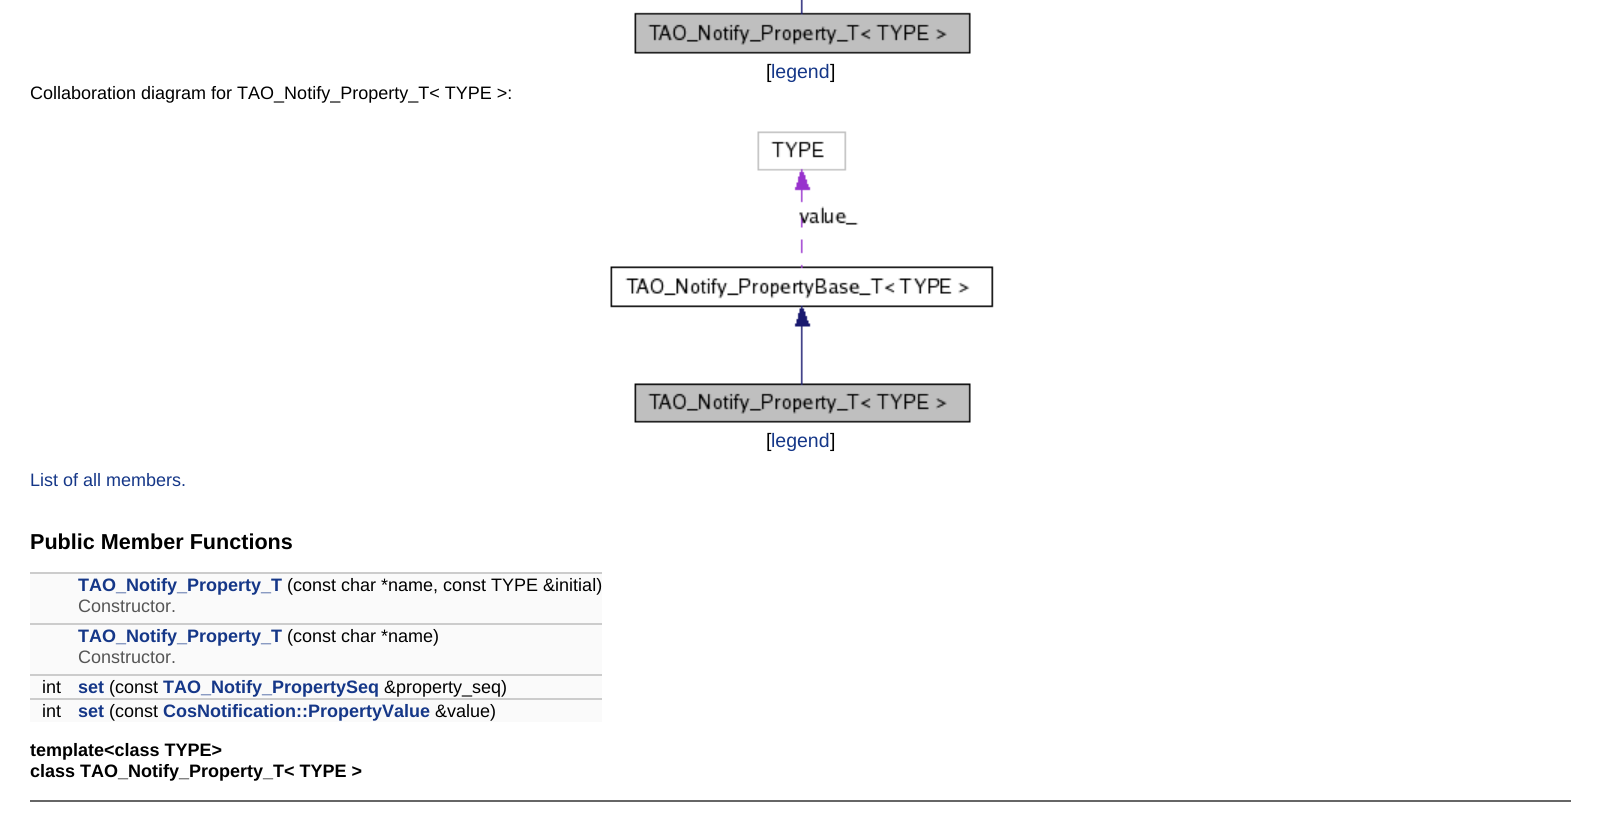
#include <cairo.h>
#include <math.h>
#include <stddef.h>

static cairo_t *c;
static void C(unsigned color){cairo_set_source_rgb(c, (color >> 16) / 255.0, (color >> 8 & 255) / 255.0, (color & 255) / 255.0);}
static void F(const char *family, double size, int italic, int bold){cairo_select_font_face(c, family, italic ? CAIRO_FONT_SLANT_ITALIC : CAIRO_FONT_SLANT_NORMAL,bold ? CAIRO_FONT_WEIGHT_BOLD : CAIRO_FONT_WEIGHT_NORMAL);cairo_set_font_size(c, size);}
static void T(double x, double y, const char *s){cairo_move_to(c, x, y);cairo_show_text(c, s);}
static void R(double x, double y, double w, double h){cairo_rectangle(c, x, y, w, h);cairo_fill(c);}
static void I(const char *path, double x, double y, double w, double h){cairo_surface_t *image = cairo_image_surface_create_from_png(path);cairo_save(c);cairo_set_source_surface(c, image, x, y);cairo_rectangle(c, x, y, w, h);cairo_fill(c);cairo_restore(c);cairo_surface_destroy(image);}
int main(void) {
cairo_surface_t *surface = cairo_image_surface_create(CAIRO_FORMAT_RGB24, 1600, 830);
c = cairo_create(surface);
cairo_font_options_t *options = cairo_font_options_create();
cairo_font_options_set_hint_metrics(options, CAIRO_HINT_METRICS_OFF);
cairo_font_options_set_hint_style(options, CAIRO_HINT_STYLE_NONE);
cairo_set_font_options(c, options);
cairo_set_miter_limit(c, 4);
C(0xffffff);
cairo_paint(c);
I("1.png",634,0,337,54);
F("Liberation Sans",19.5,0,0);
C(0x000000);
T(766,78,"[");
C(0x153788);
T(771,78,"legend");
C(0x000000);
T(830,78,"]");
F("Liberation Sans",18,0,0);
T(30,99,"Collaboration diagram for TAO_Notify_Property_T< TYPE >:");
I("2.png",610,131,384,292);
F("Liberation Sans",19.5,0,0);
T(766,447,"[");
C(0x153788);
T(771,447,"legend");
C(0x000000);
T(830,447,"]");
F("Liberation Sans",18,0,0);
C(0x153788);
T(30,486,"List of all members.");
F("Liberation Sans",21.6,0,1);
C(0x000000);
T(30,549,"Public Member Functions");
C(0xfafafa);
R(30,574,572,22);
C(0xcccccc);
R(30,572,572,2);
F("Liberation Sans",18,0,1);
C(0x153788);
T(78,591,"TAO_Notify_Property_T");
F("Liberation Sans",18,0,0);
C(0x000000);
T(287,591,"(const char *name, const TYPE &initial)");
C(0xfafafa);
R(30,596,572,27);
C(0x555555);
T(78,612,"Constructor.");
C(0xfafafa);
R(30,625,572,22);
C(0xcccccc);
R(30,623,572,2);
F("Liberation Sans",18,0,1);
C(0x153788);
T(78,642,"TAO_Notify_Property_T");
F("Liberation Sans",18,0,0);
C(0x000000);
T(287,642,"(const char *name)");
C(0xfafafa);
R(30,647,572,27);
C(0x555555);
T(78,663,"Constructor.");
C(0xfafafa);
R(30,676,572,22);
C(0xcccccc);
R(30,674,572,2);
C(0x000000);
T(42,693,"int");
F("Liberation Sans",18,0,1);
C(0x153788);
T(78,693,"set");
F("Liberation Sans",18,0,0);
C(0x000000);
T(109,693,"(const");
F("Liberation Sans",18,0,1);
C(0x153788);
T(163,693,"TAO_Notify_PropertySeq");
F("Liberation Sans",18,0,0);
C(0x000000);
T(384,693,"&property_seq)");
C(0xfafafa);
R(30,700,572,22);
C(0xcccccc);
R(30,698,572,2);
C(0x000000);
T(42,717,"int");
F("Liberation Sans",18,0,1);
C(0x153788);
T(78,717,"set");
F("Liberation Sans",18,0,0);
C(0x000000);
T(109,717,"(const");
F("Liberation Sans",18,0,1);
C(0x153788);
T(163,717,"CosNotification::PropertyValue");
F("Liberation Sans",18,0,0);
C(0x000000);
T(435,717,"&value)");
F("Liberation Sans",18,0,1);
T(30,756,"template<class TYPE>");
T(30,777,"class TAO_Notify_Property_T< TYPE >");
C(0x666666);
R(30,800,1541,2);
cairo_surface_write_to_png(surface, "o.png");
cairo_font_options_destroy(options);
cairo_destroy(c);
cairo_surface_destroy(surface);
return 0;
}
